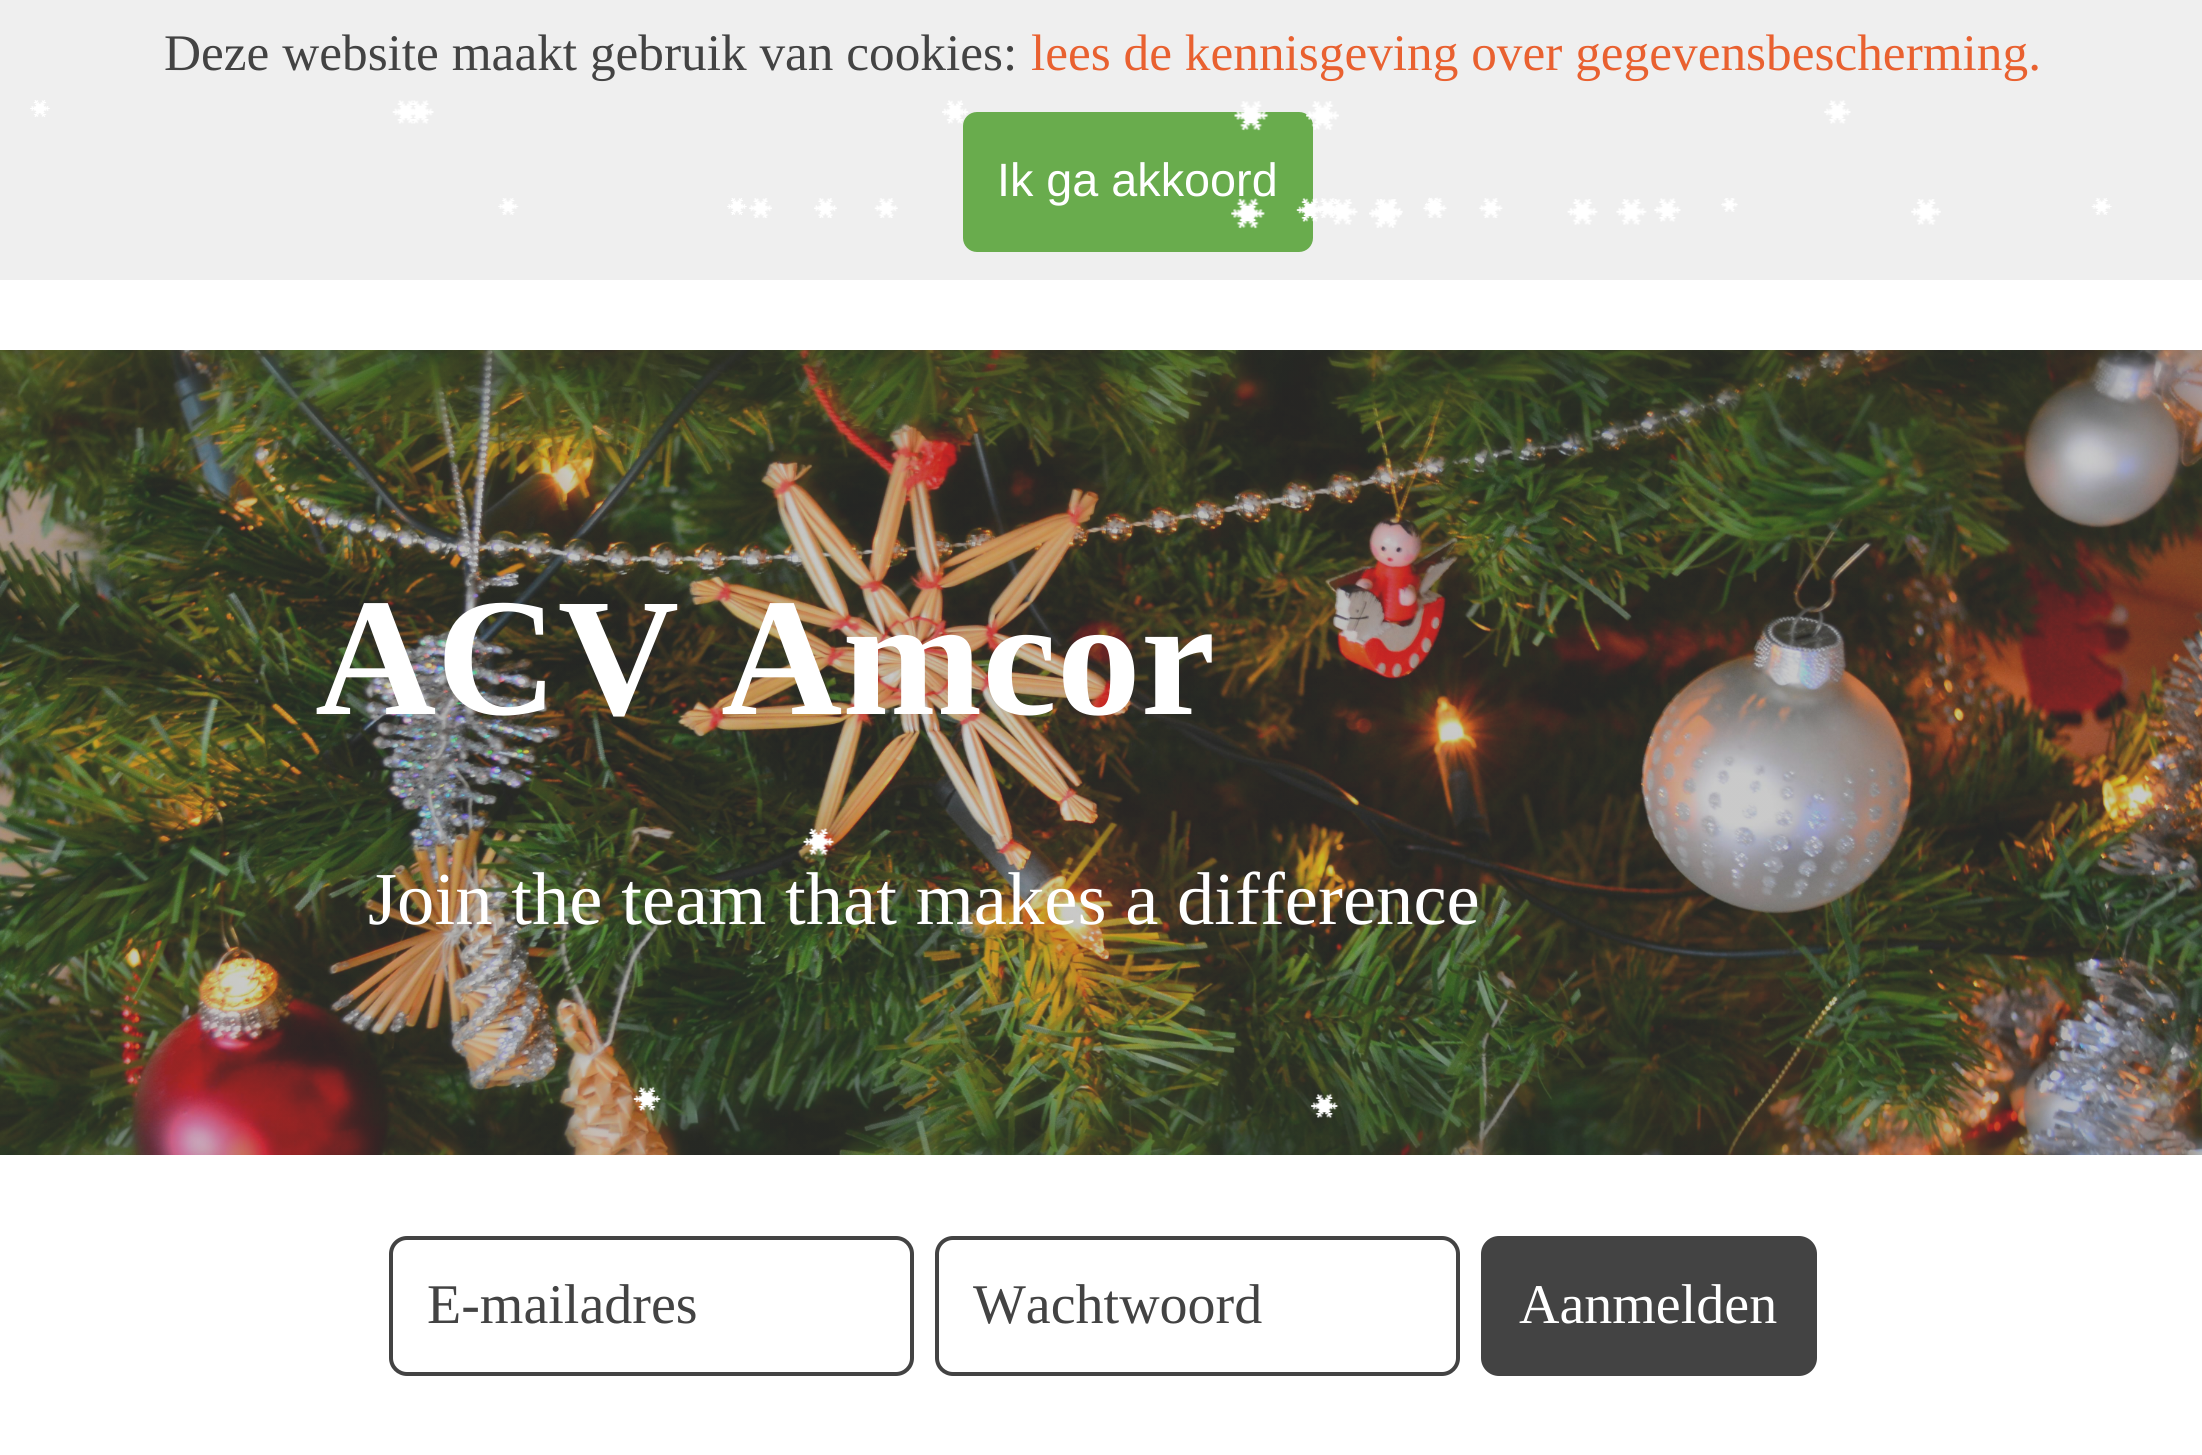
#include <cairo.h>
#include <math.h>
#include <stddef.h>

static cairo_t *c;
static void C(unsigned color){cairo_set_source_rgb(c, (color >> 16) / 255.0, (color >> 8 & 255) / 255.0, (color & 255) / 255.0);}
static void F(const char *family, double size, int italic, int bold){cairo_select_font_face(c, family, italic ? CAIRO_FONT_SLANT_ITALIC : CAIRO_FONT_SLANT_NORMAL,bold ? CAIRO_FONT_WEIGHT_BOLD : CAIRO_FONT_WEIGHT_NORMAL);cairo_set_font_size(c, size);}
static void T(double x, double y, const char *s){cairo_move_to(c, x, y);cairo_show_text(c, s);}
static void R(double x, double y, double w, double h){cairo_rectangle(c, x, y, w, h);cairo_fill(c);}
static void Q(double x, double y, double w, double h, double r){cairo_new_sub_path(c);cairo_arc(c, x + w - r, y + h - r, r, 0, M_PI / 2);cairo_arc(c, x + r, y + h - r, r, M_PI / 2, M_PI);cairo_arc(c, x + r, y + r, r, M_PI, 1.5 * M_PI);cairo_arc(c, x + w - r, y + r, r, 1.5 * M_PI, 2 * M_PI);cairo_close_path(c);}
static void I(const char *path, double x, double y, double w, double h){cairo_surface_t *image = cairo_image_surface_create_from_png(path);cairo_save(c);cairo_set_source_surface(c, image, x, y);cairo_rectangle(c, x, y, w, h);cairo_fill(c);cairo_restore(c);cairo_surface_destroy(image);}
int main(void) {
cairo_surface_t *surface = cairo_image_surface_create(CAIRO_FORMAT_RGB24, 2202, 1455);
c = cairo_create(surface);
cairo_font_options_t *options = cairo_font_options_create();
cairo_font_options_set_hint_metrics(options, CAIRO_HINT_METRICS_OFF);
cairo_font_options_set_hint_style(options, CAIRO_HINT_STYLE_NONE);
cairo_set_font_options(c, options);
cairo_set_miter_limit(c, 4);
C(0xffffff);
cairo_paint(c);
C(0xefefef);
R(0,0,2202,280);
F("Liberation Serif",51.3,0,0);
C(0x434343);
T(164,70,"Deze website maakt gebruik van cookies:");
C(0xe96130);
T(1031,70,"lees de kennisgeving over gegevensbescherming.");
C(0x69ac4d);
Q(963,112,350,140,14);
cairo_fill(c);
F("Liberation Sans",46.75,0,0);
C(0xffffff);
T(997,196,"Ik ga akkoord");
I("1.png",30,100,20,17);
I("3.png",409,100,25,24);
I("2.png",392,100,22,24);
I("4.png",942,100,27,24);
I("5.png",1234,101,35,30);
I("6.png",1306,101,33,29);
I("7.png",1824,100,27,24);
I("8.png",498,198,21,17);
I("9.png",727,198,20,17);
I("10.png",749,198,23,20);
I("11.png",814,198,23,20);
I("12.png",874,198,24,20);
I("13.png",1231,198,34,31);
I("14.png",1296,198,27,24);
I("17.png",1329,199,29,26);
I("15.png",1318,198,19,20);
I("19.png",1423,198,24,20);
I("16.png",1425,197,17,15);
I("18.png",1369,199,33,29);
I("20.png",1479,198,24,20);
I("21.png",1654,198,27,24);
I("22.png",1721,198,17,14);
I("23.png",2091,198,21,17);
I("24.png",1374,199,29,26);
I("25.png",1567,199,31,26);
I("26.png",1616,199,31,26);
I("27.png",1911,199,30,26);
I("31.png",0,350,2202,805);
I("28.png",803,828,32,28);
I("29.png",633,1086,28,25);
I("30.png",1311,1093,28,26);
F("Liberation Serif",168,0,1);
T(315,714,"ACV Amcor");
F("Liberation Serif",74.7,0,0);
T(368,924,"Join the team that makes a difference");
Q(391,1238,521,136,16);
C(0x434343);
cairo_set_line_width(c,4);
cairo_stroke(c);
F("Liberation Serif",56,0,0);
T(427,1323,"E-mailadres");
Q(937,1238,521,136,16);
cairo_stroke(c);
T(973,1323,"Wachtwoord");
Q(1481,1236,336,140,18);
cairo_fill(c);
C(0xffffff);
T(1519,1323,"Aanmelden");
cairo_surface_write_to_png(surface, "o.png");
cairo_font_options_destroy(options);
cairo_destroy(c);
cairo_surface_destroy(surface);
return 0;
}
